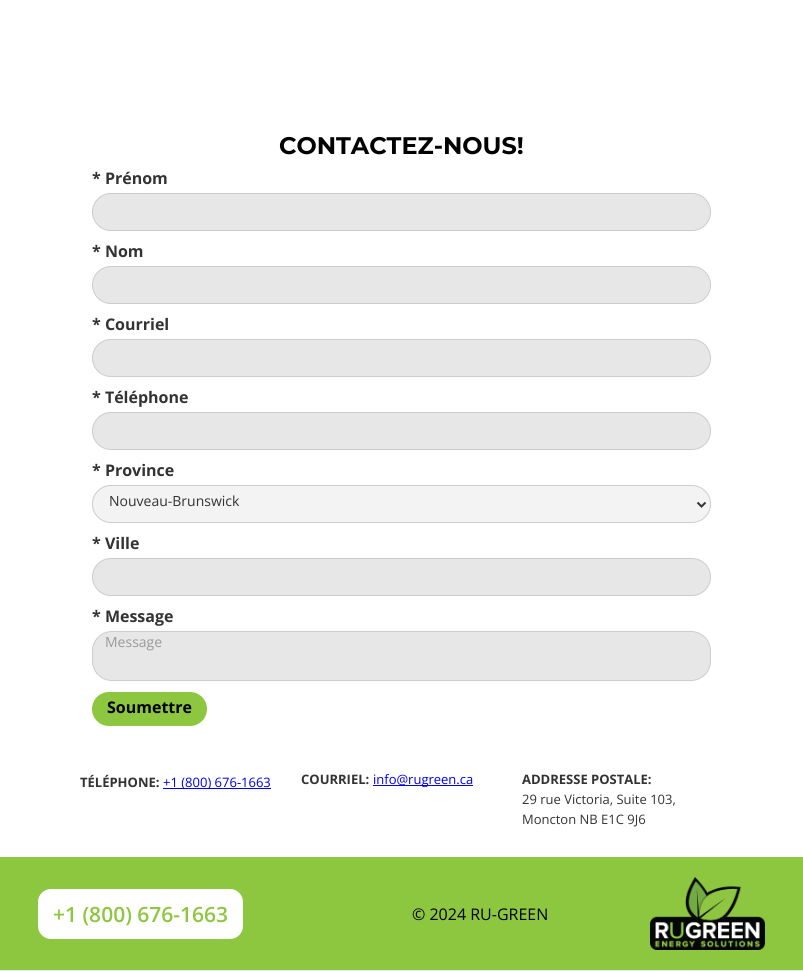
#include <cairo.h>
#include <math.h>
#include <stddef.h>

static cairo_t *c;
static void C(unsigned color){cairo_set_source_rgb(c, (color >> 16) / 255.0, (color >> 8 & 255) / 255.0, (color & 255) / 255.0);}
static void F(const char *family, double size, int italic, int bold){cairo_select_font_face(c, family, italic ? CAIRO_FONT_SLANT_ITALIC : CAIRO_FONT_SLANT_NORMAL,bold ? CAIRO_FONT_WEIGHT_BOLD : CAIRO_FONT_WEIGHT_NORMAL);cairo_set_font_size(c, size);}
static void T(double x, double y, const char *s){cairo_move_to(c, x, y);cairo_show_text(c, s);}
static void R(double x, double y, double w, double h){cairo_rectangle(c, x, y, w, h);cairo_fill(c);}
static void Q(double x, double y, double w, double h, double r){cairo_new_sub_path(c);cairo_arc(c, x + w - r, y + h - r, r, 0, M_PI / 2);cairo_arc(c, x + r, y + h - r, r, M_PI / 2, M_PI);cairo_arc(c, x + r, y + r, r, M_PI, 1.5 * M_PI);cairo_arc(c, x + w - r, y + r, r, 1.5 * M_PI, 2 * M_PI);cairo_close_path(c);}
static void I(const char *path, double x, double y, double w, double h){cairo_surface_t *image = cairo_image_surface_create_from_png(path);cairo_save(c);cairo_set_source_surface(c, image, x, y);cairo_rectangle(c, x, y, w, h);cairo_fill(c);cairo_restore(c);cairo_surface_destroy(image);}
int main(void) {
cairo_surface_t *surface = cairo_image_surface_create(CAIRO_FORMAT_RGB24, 803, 971);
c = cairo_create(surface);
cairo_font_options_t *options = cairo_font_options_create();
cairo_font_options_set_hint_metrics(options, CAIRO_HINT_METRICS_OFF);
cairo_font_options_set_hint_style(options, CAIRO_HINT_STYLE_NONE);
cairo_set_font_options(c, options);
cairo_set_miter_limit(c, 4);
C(0xffffff);
cairo_paint(c);
F("Montserrat",24,0,1);
C(0x000000);
T(279,154,"CONTACTEZ-NOUS!");
F("Open Sans",16,0,1);
C(0x333333);
T(92,184,"* Prénom");
C(0xe7e7e7);
Q(92.5,193.5,618,37,18.5);
cairo_fill_preserve(c);
C(0xcccccc);
cairo_set_line_width(c,1);
cairo_stroke(c);
C(0x333333);
T(92,257,"* Nom");
C(0xe7e7e7);
Q(92.5,266.5,618,37,18.5);
cairo_fill_preserve(c);
C(0xcccccc);
cairo_stroke(c);
C(0x333333);
T(92,330,"* Courriel");
C(0xe7e7e7);
Q(92.5,339.5,618,37,18.5);
cairo_fill_preserve(c);
C(0xcccccc);
cairo_stroke(c);
C(0x333333);
T(92,403,"* Téléphone");
C(0xe7e7e7);
Q(92.5,412.5,618,37,18.5);
cairo_fill_preserve(c);
C(0xcccccc);
cairo_stroke(c);
C(0x333333);
T(92,476,"* Province");
C(0xf3f3f3);
Q(92.5,485.5,618,37,18.5);
cairo_fill_preserve(c);
C(0xcccccc);
cairo_stroke(c);
cairo_new_path(c);
cairo_move_to(c,697.5,502.5);
cairo_line_to(c,701.5,506.5);
cairo_line_to(c,705.5,502.5);
C(0x333333);
cairo_set_line_width(c,2);
cairo_stroke(c);
F("Open Sans",14,0,0);
T(109,506,"Nouveau-Brunswick");
F("Open Sans",16,0,1);
T(92,549,"* Ville");
C(0xe7e7e7);
Q(92.5,558.5,618,37,18.5);
cairo_fill_preserve(c);
C(0xcccccc);
cairo_set_line_width(c,1);
cairo_stroke(c);
C(0x333333);
T(92,622,"* Message");
C(0xe7e7e7);
Q(92.5,631.5,618,49,19.5);
cairo_fill_preserve(c);
C(0xcccccc);
cairo_stroke(c);
F("Open Sans",14,0,0);
C(0x999999);
T(105,647,"Message");
C(0x8dc63f);
Q(92,692,115,34,17);
cairo_fill(c);
F("Open Sans",16,0,1);
C(0x000000);
T(107,713,"Soumettre");
F("Open Sans",13,0,1);
C(0x333333);
T(80,787,"TÉLÉPHONE:");
C(0x0000ee);
R(163,788,108,1);
F("Open Sans",13,0,0);
T(163,787,"+1 (800) 676-1663");
F("Open Sans",13,0,1);
C(0x333333);
T(301,784,"COURRIEL:");
C(0x0000ee);
R(373,785,100,1);
F("Open Sans",13,0,0);
T(373,784,"info@rugreen.ca");
F("Open Sans",13,0,1);
C(0x333333);
T(522,784,"ADDRESSE POSTALE:");
F("Open Sans",13,0,0);
T(522,804,"29 rue Victoria, Suite 103,");
T(522,824,"Moncton NB E1C 9J6");
C(0x8dc63f);
R(0,857,803,113);
C(0xe4ebf3);
R(0,970,803,1);
C(0xffffff);
Q(38,889,205,50,13);
cairo_fill(c);
F("Open Sans SemiBold",21,0,0);
C(0x8dc63f);
T(53,922,"+1 (800) 676-1663");
F("Open Sans",16,0,0);
C(0x000000);
T(412,920,"© 2024 RU-GREEN");
I("1.png",650,877,115,73);
cairo_surface_write_to_png(surface, "o.png");
cairo_font_options_destroy(options);
cairo_destroy(c);
cairo_surface_destroy(surface);
return 0;
}
